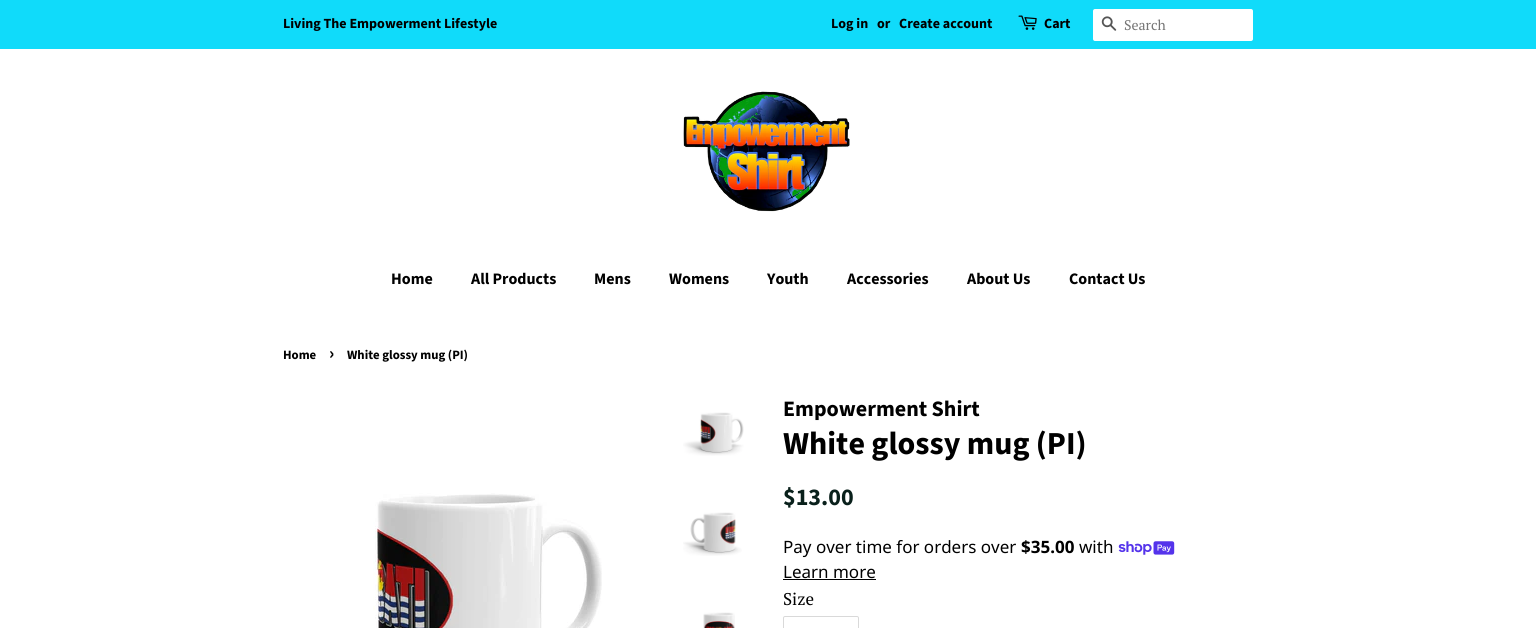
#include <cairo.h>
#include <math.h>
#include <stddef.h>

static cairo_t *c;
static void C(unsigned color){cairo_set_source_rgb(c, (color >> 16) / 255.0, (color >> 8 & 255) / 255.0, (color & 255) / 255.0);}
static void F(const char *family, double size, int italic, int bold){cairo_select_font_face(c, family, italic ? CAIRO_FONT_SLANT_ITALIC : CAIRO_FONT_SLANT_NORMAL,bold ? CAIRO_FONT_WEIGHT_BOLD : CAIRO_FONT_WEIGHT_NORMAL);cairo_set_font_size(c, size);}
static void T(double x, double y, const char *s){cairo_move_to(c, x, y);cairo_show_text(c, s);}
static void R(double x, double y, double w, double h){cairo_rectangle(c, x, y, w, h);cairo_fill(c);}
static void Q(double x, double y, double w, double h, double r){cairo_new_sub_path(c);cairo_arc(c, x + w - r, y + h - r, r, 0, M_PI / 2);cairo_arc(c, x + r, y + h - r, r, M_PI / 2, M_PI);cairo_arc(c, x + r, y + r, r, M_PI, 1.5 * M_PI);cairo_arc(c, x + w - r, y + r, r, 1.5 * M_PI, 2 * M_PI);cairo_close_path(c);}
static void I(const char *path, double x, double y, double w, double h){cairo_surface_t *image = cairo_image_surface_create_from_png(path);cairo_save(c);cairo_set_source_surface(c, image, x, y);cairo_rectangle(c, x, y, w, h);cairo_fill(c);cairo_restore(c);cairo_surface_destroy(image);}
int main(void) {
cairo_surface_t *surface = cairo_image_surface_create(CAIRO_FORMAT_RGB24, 1536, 628);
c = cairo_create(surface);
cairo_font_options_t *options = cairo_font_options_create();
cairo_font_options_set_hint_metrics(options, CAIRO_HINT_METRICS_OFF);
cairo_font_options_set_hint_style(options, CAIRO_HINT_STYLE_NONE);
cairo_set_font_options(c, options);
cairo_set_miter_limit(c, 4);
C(0xffffff);
cairo_paint(c);
C(0x10dbfa);
R(0,0,1536,49);
F("Source Sans Pro",14,0,1);
C(0x000000);
T(283,28,"Living The Empowerment Lifestyle");
T(831,28,"Log in");
T(877,28,"or");
T(899,28,"Create account");
I("1.png",1018,15,19,15);
T(1044,28,"Cart");
C(0xffffff);
Q(1093,9,160,32,2);
cairo_fill(c);
I("2.png",1101,16,16,15);
F("PT Serif",14,0,0);
C(0x757575);
T(1124,30,"Search");
I("3.png",683,91,167,121);
F("Source Sans Pro",16,0,1);
C(0x000000);
T(391,284,"Home");
T(471,284,"All Products");
T(594,284,"Mens");
T(669,284,"Womens");
T(767,284,"Youth");
T(847,284,"Accessories");
T(967,284,"About Us");
T(1069,284,"Contact Us");
F("Source Sans Pro",12.75,0,1);
T(283,359,"Home");
F("Source Sans Pro",18,0,1);
T(329,359,"›");
F("Source Sans Pro",12.75,0,1);
T(347,359,"White glossy mug (PI)");
I("4.png",373,493,229,135);
I("5.png",683,412,61,44);
I("6.png",683,512,59,44);
I("7.png",703,612,32,16);
F("Source Sans Pro",22,0,1);
T(783,416,"Empowerment Shirt");
F("Source Sans Pro",32,0,1);
T(783,454,"White glossy mug (PI)");
F("Source Sans Pro",24,0,1);
C(0x09201b);
T(783,505,"$13.00");
F("Noto Sans",17,0,0);
C(0x000000);
T(783,553,"Pay over time for orders over");
F("Noto Sans",17,0,1);
T(1021,553,"$35.00");
F("Noto Sans",17,0,0);
T(1079,553,"with");
I("8.png",1118,541,57,14);
T(783,578,"Learn more");
R(783,579,93,1);
F("PT Serif",17,0,0);
T(783,605,"Size");
Q(783.5,616.5,75,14,1.5);
C(0xd9d9d9);
cairo_set_line_width(c,1);
cairo_stroke(c);
cairo_surface_write_to_png(surface, "o.png");
cairo_font_options_destroy(options);
cairo_destroy(c);
cairo_surface_destroy(surface);
return 0;
}
